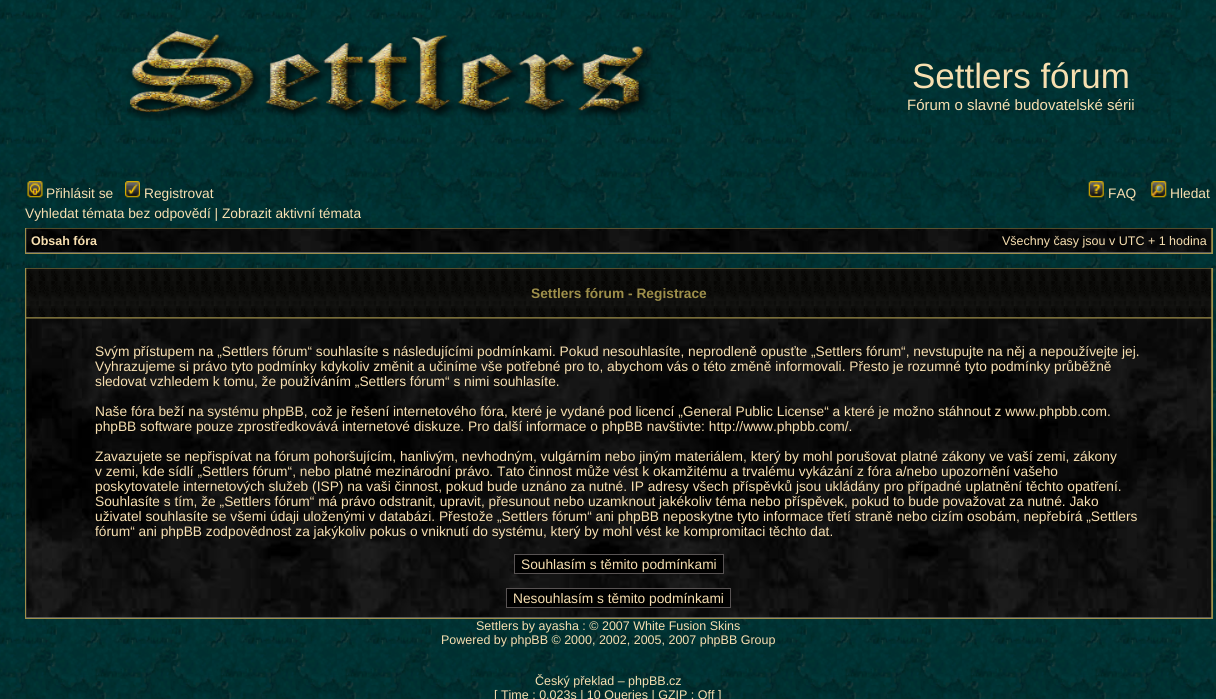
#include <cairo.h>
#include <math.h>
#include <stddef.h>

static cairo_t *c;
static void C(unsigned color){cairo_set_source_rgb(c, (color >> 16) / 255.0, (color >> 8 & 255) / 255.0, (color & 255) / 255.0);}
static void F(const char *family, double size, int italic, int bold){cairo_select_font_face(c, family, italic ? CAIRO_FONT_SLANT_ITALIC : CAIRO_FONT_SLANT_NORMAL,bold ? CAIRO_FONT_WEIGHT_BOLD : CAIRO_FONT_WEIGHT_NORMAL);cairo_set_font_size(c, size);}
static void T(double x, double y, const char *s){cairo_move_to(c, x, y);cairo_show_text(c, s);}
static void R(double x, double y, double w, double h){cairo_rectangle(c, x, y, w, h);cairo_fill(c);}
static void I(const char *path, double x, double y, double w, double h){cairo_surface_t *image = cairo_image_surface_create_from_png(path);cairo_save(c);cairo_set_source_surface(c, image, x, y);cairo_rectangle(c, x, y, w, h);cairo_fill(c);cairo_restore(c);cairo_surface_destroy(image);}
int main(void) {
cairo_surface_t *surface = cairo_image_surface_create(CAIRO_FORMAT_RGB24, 1216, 699);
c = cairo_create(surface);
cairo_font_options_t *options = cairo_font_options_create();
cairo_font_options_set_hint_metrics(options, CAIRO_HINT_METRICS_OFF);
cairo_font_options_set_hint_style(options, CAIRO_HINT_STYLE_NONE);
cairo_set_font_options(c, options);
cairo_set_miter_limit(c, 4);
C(0xffffff);
cairo_paint(c);
I("1.png",0,0,1216,699);
I("2.png",127,31,526,90);
F("Liberation Sans",35,0,0);
C(0xf7dfb0);
T(912,88,"Settlers fórum");
F("Liberation Sans",15,0,0);
T(907,110,"Fórum o slavné budovatelské sérii");
I("3.png",27,181,16,17);
F("Liberation Sans",13.75,0,0);
T(46,198,"Přihlásit se");
I("4.png",125,181,15,17);
T(144,198,"Registrovat");
I("5.png",1088,181,16,17);
T(1108,198,"FAQ");
I("6.png",1151,181,16,17);
T(1170,198,"Hledat");
T(25,218,"Vyhledat témata bez odpovědí | Zobrazit aktivní témata");
C(0x9e8f4a);
R(25,228,1188,26);
C(0x727272);
R(26,229,1185,24);
I("7.png",26,228,1186,25);
F("Liberation Sans",12.5,0,1);
C(0xf7dfb0);
T(31,245,"Obsah fóra");
F("Liberation Sans",12.5,0,0);
T(1002,245,"Všechny časy jsou v UTC + 1 hodina");
C(0x9e8f4a);
R(25,268,1188,351);
I("8.png",26,268,1186,50);
F("Liberation Sans",13.75,0,1);
T(531,298,"Settlers fórum - Registrace");
C(0x727272);
R(26,319,1185,299);
I("9.png",26,318,1186,300);
F("Liberation Sans",13.75,0,0);
C(0xf7dfb0);
T(95,356,"Svým přístupem na „Settlers fórum“ souhlasíte s následujícími podmínkami. Pokud nesouhlasíte, neprodleně opusťte „Settlers fórum“, nevstupujte na něj a nepoužívejte jej.");
T(95,371,"Vyhrazujeme si právo tyto podmínky kdykoliv změnit a učiníme vše potřebné pro to, abychom vás o této změně informovali. Přesto je rozumné tyto podmínky průběžně");
T(95,386,"sledovat vzhledem k tomu, že používáním „Settlers fórum“ s nimi souhlasíte.");
T(95,416,"Naše fóra beží na systému phpBB, což je řešení internetového fóra, které je vydané pod licencí „General Public License“ a které je možno stáhnout z www.phpbb.com.");
T(95,431,"phpBB software pouze zprostředkovává internetové diskuze. Pro další informace o phpBB navštivte: http://www.phpbb.com/.");
T(95,461,"Zavazujete se nepřispívat na fórum pohoršujícím, hanlivým, nevhodným, vulgárním nebo jiným materiálem, který by mohl porušovat platné zákony ve vaší zemi, zákony");
T(95,476,"v zemi, kde sídlí „Settlers fórum“, nebo platné mezinárodní právo. Tato činnost může vést k okamžitému a trvalému vykázání z fóra a/nebo upozornění vašeho");
T(95,491,"poskytovatele internetových služeb (ISP) na vaši činnost, pokud bude uznáno za nutné. IP adresy všech příspěvků jsou ukládány pro případné uplatnění těchto opatření.");
T(95,506,"Souhlasíte s tím, že „Settlers fórum“ má právo odstranit, upravit, přesunout nebo uzamknout jakékoliv téma nebo příspěvek, pokud to bude považovat za nutné. Jako");
T(95,521,"uživatel souhlasíte se všemi údaji uloženými v databázi. Přestože „Settlers fórum“ ani phpBB neposkytne tyto informace třetí straně nebo cizím osobám, nepřebírá „Settlers");
T(95,536,"fórum“ ani phpBB zodpovědnost za jakýkoliv pokus o vniknutí do systému, který by mohl vést ke kompromitaci těchto dat.");
C(0x000000);
cairo_rectangle(c,514.5,554.5,209,19);
cairo_fill_preserve(c);
C(0x595454);
cairo_set_line_width(c,1);
cairo_stroke(c);
C(0xf7dfb0);
T(521,569,"Souhlasím s těmito podmínkami");
C(0x000000);
cairo_rectangle(c,506.5,588.5,224,19);
cairo_fill_preserve(c);
C(0x595454);
cairo_stroke(c);
C(0xf7dfb0);
T(513,603,"Nesouhlasím s těmito podmínkami");
F("Liberation Sans",12.5,0,0);
T(476,630,"Settlers by ayasha : © 2007 White Fusion Skins");
T(441,644,"Powered by phpBB © 2000, 2002, 2005, 2007 phpBB Group");
T(535,685,"Český překlad – phpBB.cz");
T(494,699,"[ Time : 0.023s | 10 Queries | GZIP : Off ]");
cairo_surface_write_to_png(surface, "o.png");
cairo_font_options_destroy(options);
cairo_destroy(c);
cairo_surface_destroy(surface);
return 0;
}
